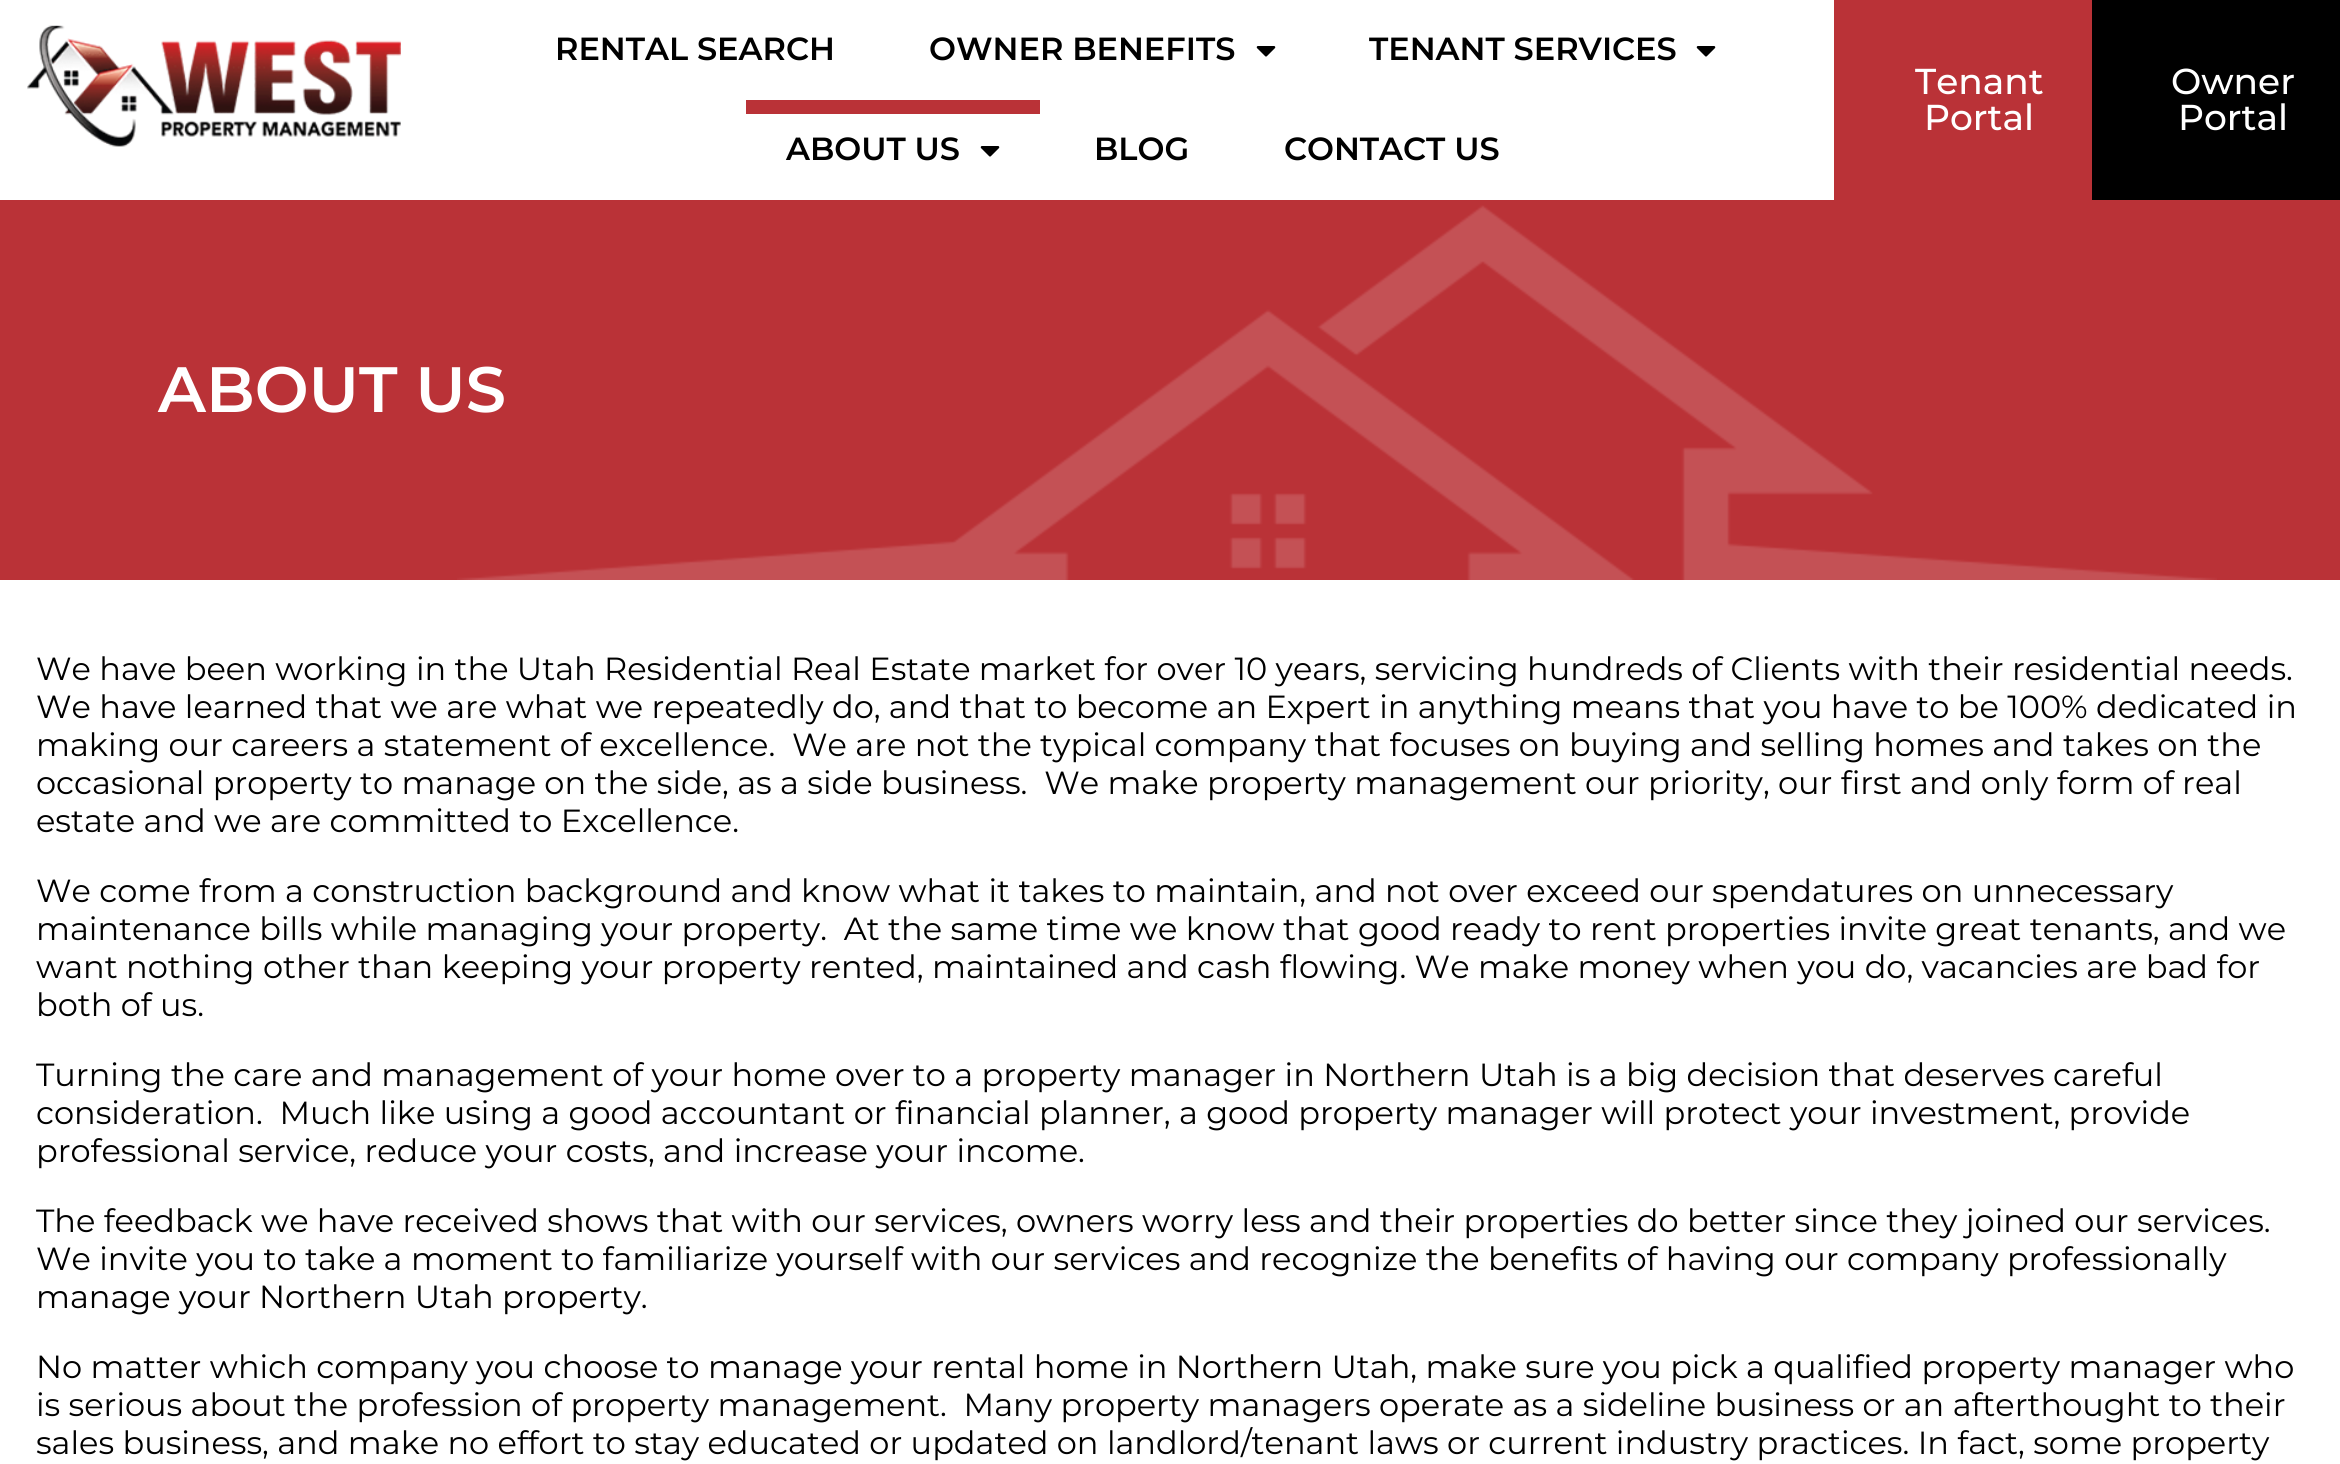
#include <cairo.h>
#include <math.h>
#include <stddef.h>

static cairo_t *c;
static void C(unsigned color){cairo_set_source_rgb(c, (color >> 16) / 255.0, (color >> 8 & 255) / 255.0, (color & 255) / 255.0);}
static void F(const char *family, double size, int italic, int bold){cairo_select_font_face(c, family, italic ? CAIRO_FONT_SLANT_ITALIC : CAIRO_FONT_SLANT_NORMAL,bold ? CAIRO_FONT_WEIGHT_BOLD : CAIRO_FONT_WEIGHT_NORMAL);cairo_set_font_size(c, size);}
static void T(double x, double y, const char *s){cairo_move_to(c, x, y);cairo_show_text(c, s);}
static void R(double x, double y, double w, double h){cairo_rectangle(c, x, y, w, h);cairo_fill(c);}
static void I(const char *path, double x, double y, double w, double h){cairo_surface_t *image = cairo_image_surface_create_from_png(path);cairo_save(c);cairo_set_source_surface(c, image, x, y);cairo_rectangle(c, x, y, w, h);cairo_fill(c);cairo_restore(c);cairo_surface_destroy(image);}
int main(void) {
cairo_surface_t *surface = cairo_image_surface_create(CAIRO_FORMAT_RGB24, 2340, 1464);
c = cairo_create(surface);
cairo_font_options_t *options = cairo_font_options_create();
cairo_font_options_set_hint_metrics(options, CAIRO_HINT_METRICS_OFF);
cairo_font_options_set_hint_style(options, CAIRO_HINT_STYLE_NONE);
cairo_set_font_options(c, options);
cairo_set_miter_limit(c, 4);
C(0xffffff);
cairo_paint(c);
I("1.png",27,25,374,122);
F("Montserrat SemiBold",32,0,0);
C(0x000000);
T(555,60,"RENTAL SEARCH");
T(929,60,"OWNER BENEFITS");
I("2.png",1256,46,20,11);
T(1369,60,"TENANT SERVICES");
I("2.png",1696,46,20,11);
C(0xba3237);
R(746,100,294,14);
C(0x000000);
T(786,160,"ABOUT US");
I("2.png",980,146,20,11);
T(1094,160,"BLOG");
T(1284,160,"CONTACT US");
C(0xba3237);
R(1834,0,258,200);
F("Montserrat Medium",36,0,0);
C(0xffffff);
T(1915,94,"Tenant");
T(1924,130,"Portal");
C(0x000000);
R(2092,0,248,200);
C(0xffffff);
T(2171,94,"Owner");
T(2178,130,"Portal");
C(0xba3237);
R(0,200,2340,380);
I("3.png",457,205,1760,375);
F("Montserrat SemiBold",64,0,0);
C(0xffffff);
T(158,412,"ABOUT US");
F("Montserrat",32,0,0);
C(0x000000);
T(36,680,"We have been working in the Utah Residential Real Estate market for over 10 years, servicing hundreds of Clients with their residential needs.");
T(36,718,"We have learned that we are what we repeatedly do, and that to become an Expert in anything means that you have to be 100% dedicated in");
T(36,756,"making our careers a statement of excellence.  We are not the typical company that focuses on buying and selling homes and takes on the");
T(36,794,"occasional property to manage on the side, as a side business.  We make property management our priority, our first and only form of real");
T(36,832,"estate and we are committed to Excellence.");
T(36,902,"We come from a construction background and know what it takes to maintain, and not over exceed our spendatures on unnecessary");
T(36,940,"maintenance bills while managing your property.  At the same time we know that good ready to rent properties invite great tenants, and we");
T(36,978,"want nothing other than keeping your property rented, maintained and cash flowing. We make money when you do, vacancies are bad for");
T(36,1016,"both of us.");
T(36,1086,"Turning the care and management of your home over to a property manager in Northern Utah is a big decision that deserves careful");
T(36,1124,"consideration.  Much like using a good accountant or financial planner, a good property manager will protect your investment, provide");
T(36,1162,"professional service, reduce your costs, and increase your income.");
T(36,1232,"The feedback we have received shows that with our services, owners worry less and their properties do better since they joined our services.");
T(36,1270,"We invite you to take a moment to familiarize yourself with our services and recognize the benefits of having our company professionally");
T(36,1308,"manage your Northern Utah property.");
T(36,1378,"No matter which company you choose to manage your rental home in Northern Utah, make sure you pick a qualified property manager who");
T(36,1416,"is serious about the profession of property management.  Many property managers operate as a sideline business or an afterthought to their");
T(36,1454,"sales business, and make no effort to stay educated or updated on landlord/tenant laws or current industry practices. In fact, some property");
cairo_surface_write_to_png(surface, "o.png");
cairo_font_options_destroy(options);
cairo_destroy(c);
cairo_surface_destroy(surface);
return 0;
}
